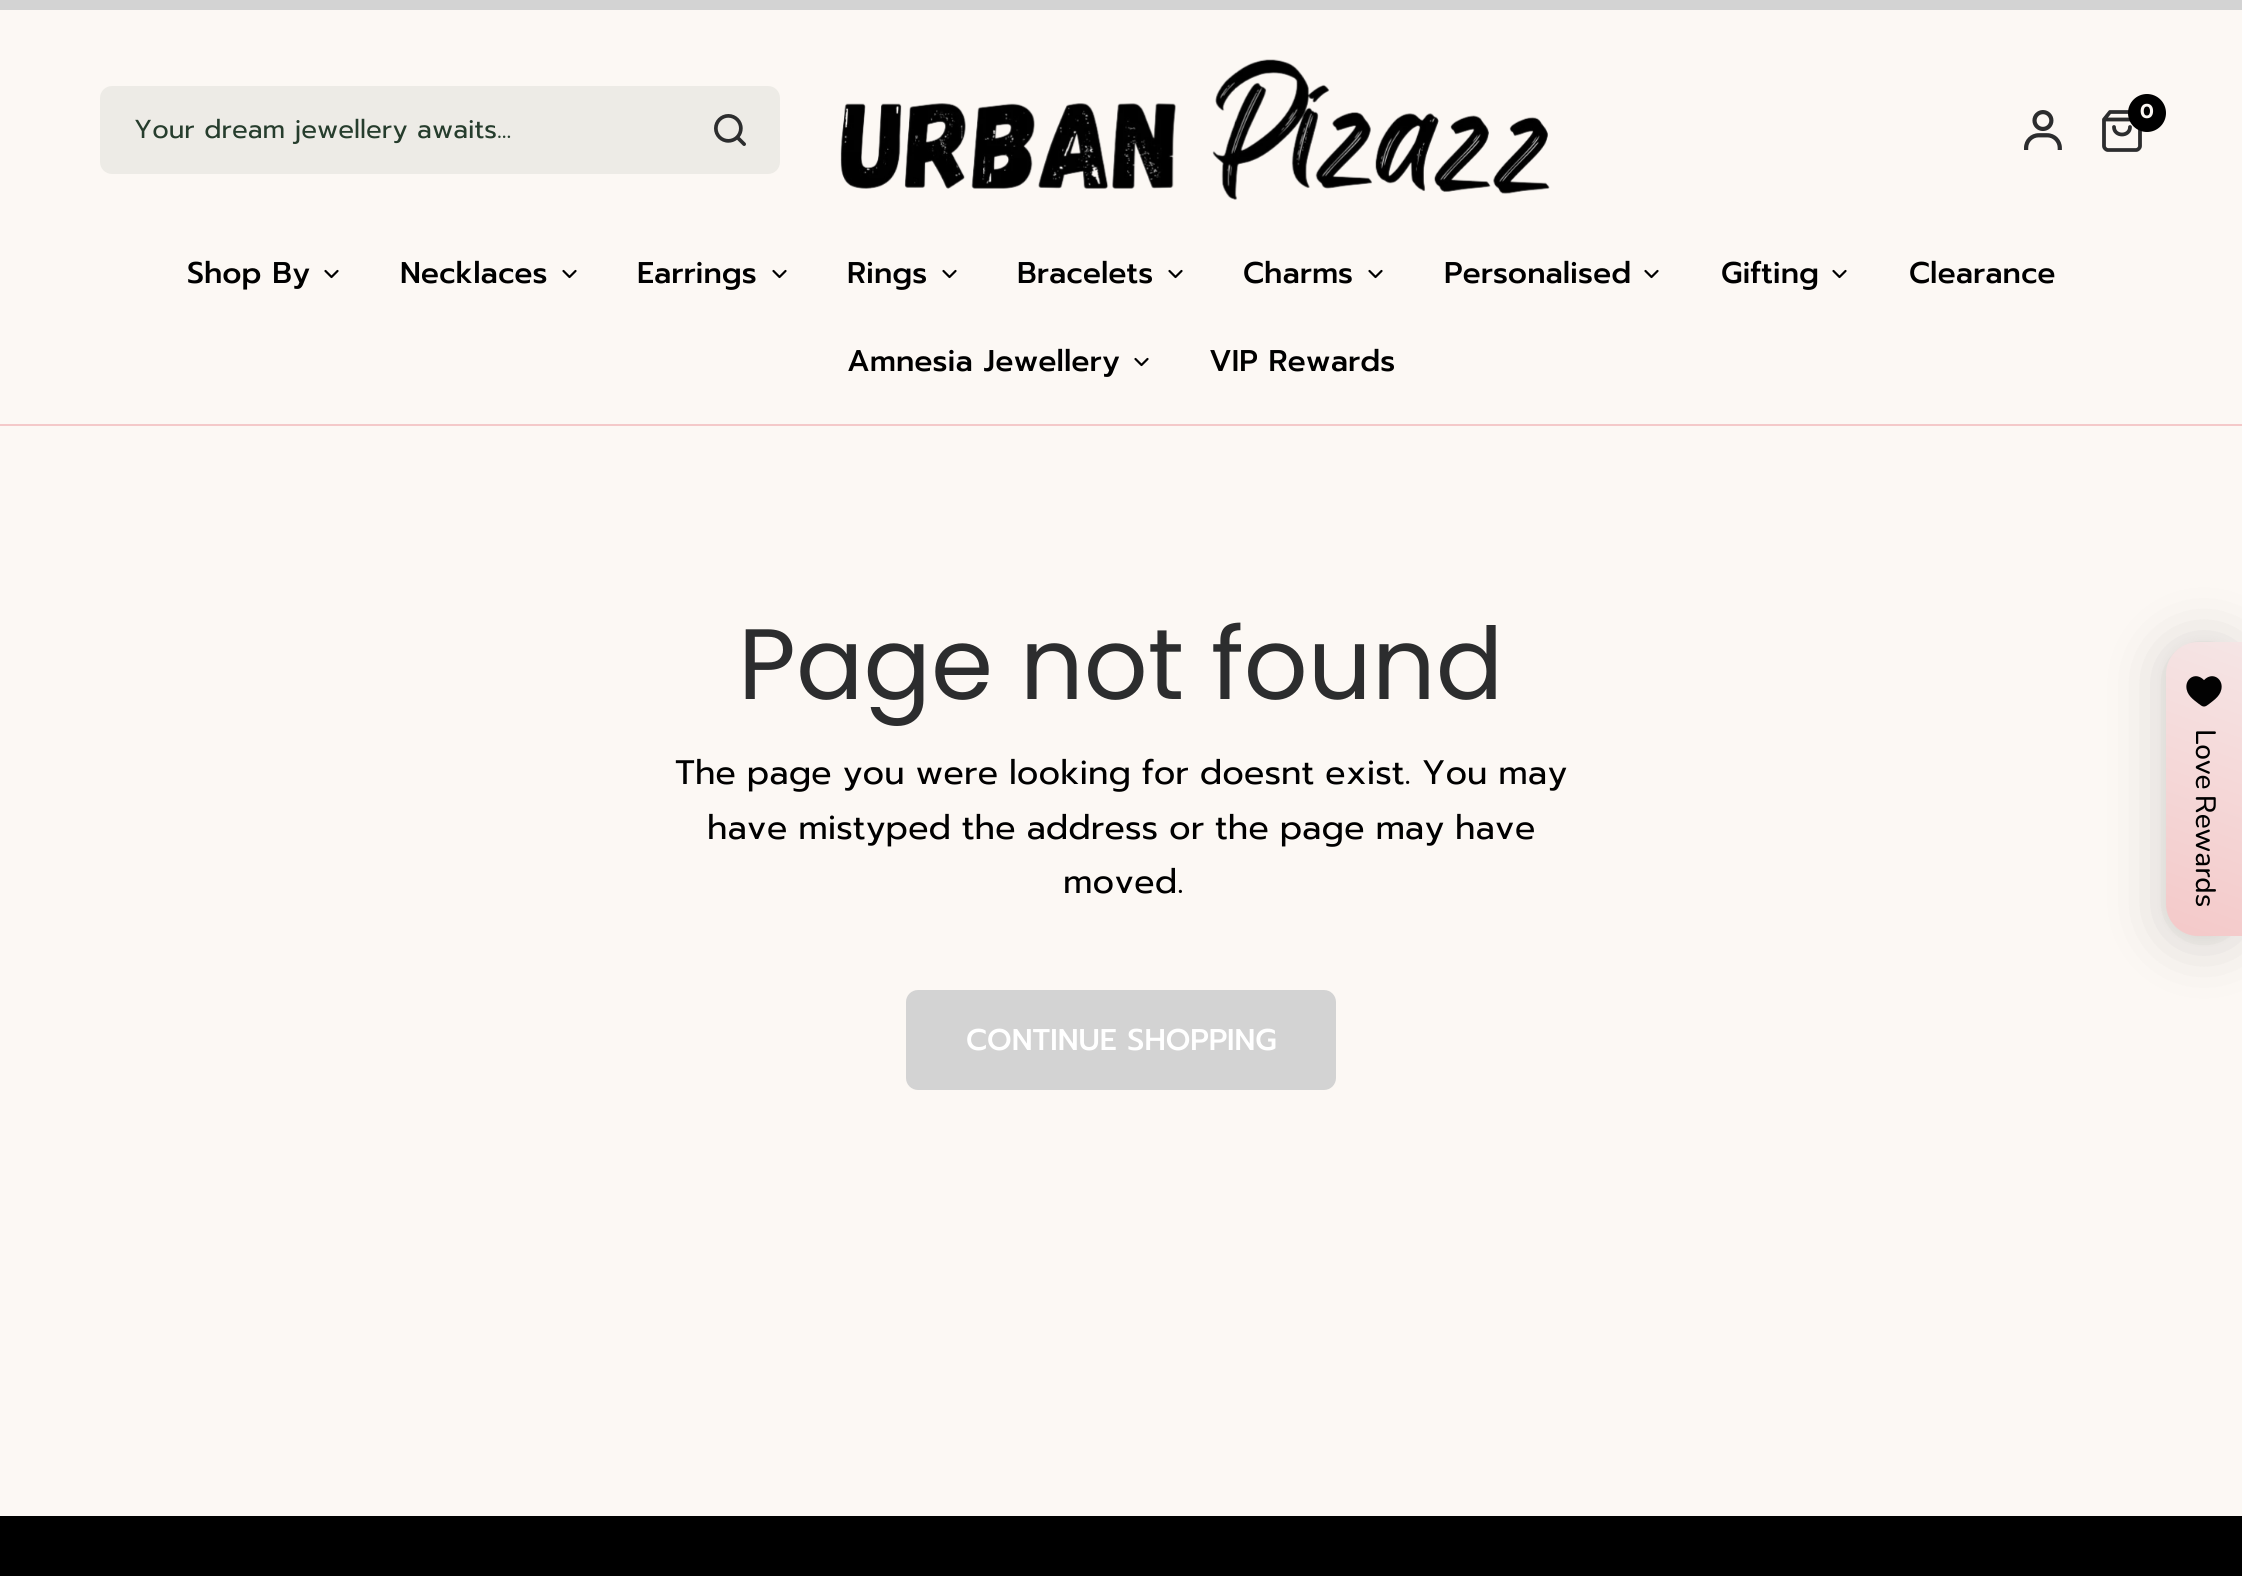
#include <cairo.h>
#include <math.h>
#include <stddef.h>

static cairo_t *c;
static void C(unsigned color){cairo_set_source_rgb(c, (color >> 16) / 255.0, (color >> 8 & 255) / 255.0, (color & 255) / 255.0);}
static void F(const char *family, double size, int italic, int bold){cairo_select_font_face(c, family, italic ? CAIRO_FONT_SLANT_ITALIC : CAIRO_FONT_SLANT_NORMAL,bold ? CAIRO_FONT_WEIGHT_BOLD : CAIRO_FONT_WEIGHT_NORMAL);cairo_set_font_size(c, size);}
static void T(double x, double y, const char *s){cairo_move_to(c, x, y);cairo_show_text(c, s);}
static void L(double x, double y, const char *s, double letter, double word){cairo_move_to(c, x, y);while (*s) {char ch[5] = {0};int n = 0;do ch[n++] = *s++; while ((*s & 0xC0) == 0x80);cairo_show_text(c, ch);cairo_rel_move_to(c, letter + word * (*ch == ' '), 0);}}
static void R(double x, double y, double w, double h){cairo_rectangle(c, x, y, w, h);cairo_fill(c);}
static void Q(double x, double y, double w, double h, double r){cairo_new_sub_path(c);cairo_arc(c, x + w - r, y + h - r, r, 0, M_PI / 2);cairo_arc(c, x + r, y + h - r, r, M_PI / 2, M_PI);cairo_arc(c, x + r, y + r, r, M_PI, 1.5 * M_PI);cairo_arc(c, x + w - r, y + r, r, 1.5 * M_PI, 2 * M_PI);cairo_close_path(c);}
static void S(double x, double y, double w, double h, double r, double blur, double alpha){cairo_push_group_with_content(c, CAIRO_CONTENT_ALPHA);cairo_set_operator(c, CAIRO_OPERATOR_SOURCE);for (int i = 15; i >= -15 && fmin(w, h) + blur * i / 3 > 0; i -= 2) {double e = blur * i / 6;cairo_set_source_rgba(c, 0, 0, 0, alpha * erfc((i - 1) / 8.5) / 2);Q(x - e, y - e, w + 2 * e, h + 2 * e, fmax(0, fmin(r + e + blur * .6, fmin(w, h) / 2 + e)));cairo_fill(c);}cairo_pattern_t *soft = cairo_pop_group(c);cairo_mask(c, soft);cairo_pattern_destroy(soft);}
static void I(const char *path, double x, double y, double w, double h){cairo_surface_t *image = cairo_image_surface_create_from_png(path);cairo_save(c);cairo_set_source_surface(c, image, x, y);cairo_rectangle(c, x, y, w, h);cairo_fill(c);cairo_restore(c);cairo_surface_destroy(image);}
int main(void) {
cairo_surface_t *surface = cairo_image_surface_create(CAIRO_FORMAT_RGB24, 2242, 1576);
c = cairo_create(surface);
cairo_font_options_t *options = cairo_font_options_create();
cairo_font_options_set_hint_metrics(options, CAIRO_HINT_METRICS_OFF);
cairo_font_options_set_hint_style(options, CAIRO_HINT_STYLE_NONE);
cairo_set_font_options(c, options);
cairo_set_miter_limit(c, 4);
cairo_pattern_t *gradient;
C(0xfcf8f4);
cairo_paint(c);
C(0xd3d3d3);
R(0,0,2242,10);
I("1.png",840,59,710,141);
I("2.png",2024,110,38,40);
cairo_new_path(c);
cairo_move_to(c,2104,119.5);
cairo_line_to(c,2110,112);
cairo_line_to(c,2134,112);
cairo_line_to(c,2140,119.5);
cairo_move_to(c,2104,119.5);
cairo_line_to(c,2104,146);
cairo_curve_to(c,2104,148,2106,150,2108,150);
cairo_line_to(c,2136,150);
cairo_curve_to(c,2138,150,2140,148,2140,146);
cairo_line_to(c,2140,119.5);
cairo_move_to(c,2104,119.5);
cairo_line_to(c,2140,119.5);
cairo_move_to(c,2130,127);
cairo_curve_to(c,2130,137,2114,137,2114,127);
C(0x2c2d2e);
cairo_set_line_width(c,3.8);
cairo_set_line_cap(c,CAIRO_LINE_CAP_ROUND);
cairo_set_line_join(c,CAIRO_LINE_JOIN_ROUND);
cairo_stroke(c);
C(0x000000);
cairo_arc(c,2147,113,19,0,2 * M_PI);
cairo_fill(c);
F("Prompt SemiBold",20,0,0);
C(0xfcf8f4);
T(2140,118,"0");
C(0xedebe6);
Q(100,86,680,88,12);
cairo_fill(c);
F("Prompt",26,0,0);
C(0x263d2d);
T(134,138,"Your dream jewellery awaits...");
I("3.png",714,114,32,32);
F("Prompt Medium",30,0,0);
C(0x000000);
T(187,283,"Shop By");
cairo_new_path(c);
cairo_move_to(c,337.5,271);
cairo_line_to(c,331.5,277);
cairo_line_to(c,325.5,271);
cairo_set_line_width(c,2.2);
cairo_stroke(c);
T(400,283,"Necklaces");
cairo_new_path(c);
cairo_move_to(c,575.5,271);
cairo_line_to(c,569.5,277);
cairo_line_to(c,563.5,271);
cairo_stroke(c);
T(637,283,"Earrings");
cairo_new_path(c);
cairo_move_to(c,785.5,271);
cairo_line_to(c,779.5,277);
cairo_line_to(c,773.5,271);
cairo_stroke(c);
T(847,283,"Rings");
cairo_new_path(c);
cairo_move_to(c,955.5,271);
cairo_line_to(c,949.5,277);
cairo_line_to(c,943.5,271);
cairo_stroke(c);
T(1017,283,"Bracelets");
cairo_new_path(c);
cairo_move_to(c,1181.5,271);
cairo_line_to(c,1175.5,277);
cairo_line_to(c,1169.5,271);
cairo_stroke(c);
T(1243,283,"Charms");
cairo_new_path(c);
cairo_move_to(c,1381.5,271);
cairo_line_to(c,1375.5,277);
cairo_line_to(c,1369.5,271);
cairo_stroke(c);
T(1444,283,"Personalised");
cairo_new_path(c);
cairo_move_to(c,1657.5,271);
cairo_line_to(c,1651.5,277);
cairo_line_to(c,1645.5,271);
cairo_stroke(c);
T(1721,283,"Gifting");
cairo_new_path(c);
cairo_move_to(c,1845.5,271);
cairo_line_to(c,1839.5,277);
cairo_line_to(c,1833.5,271);
cairo_stroke(c);
T(1909,283,"Clearance");
T(847,371,"Amnesia Jewellery");
cairo_new_path(c);
cairo_move_to(c,1147.5,359);
cairo_line_to(c,1141.5,365);
cairo_line_to(c,1135.5,359);
cairo_stroke(c);
T(1209,371,"VIP Rewards");
C(0xf4c9c9);
R(0,424,2242,2);
F("Poppins",100,0,0);
C(0x2c2d2e);
T(738,699,"Page not found");
F("Prompt",34,0,0);
C(0x000000);
L(675,784,"The page you were looking for doesnt exist. You may",0,-1.75);
L(707,839,"have mistyped the address or the page may have",0,-1.75);
T(1063,893,"moved.");
C(0xd3d3d3);
Q(906,990,430,100,12);
cairo_fill(c);
F("Prompt Medium",30,0,0);
C(0xffffff);
T(966,1050,"CONTINUE SHOPPING");
C(0x000000);
R(0,1516,2242,60);
C(0x000000);
S(2166,646,76,294,32,32,.16);
S(2166,644,76,294,32,6,.06);
gradient = cairo_pattern_create_linear(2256,646,2152,930);
cairo_pattern_add_color_stop_rgba(gradient,0,0.961,0.898,0.898,1);
cairo_pattern_add_color_stop_rgba(gradient,1,0.957,0.788,0.788,1);
cairo_set_source(c,gradient);
cairo_pattern_destroy(gradient);
cairo_new_path(c);
cairo_move_to(c,2198,642);
cairo_line_to(c,2242,642);
cairo_line_to(c,2242,936);
cairo_line_to(c,2198,936);
cairo_curve_to(c,2180.5,936,2166,921.5,2166,904);
cairo_line_to(c,2166,674);
cairo_curve_to(c,2166,656.5,2180.5,642,2198,642);
cairo_close_path(c);
cairo_fill(c);
I("4.png",2186,676,36,31);
F("Nunito Medium",28,0,0);
C(0x000000);
cairo_save(c);
cairo_translate(c,2196,729);
cairo_rotate(c,90 * M_PI / 180);
L(0,0,"Love Rewards",0,-2);
cairo_restore(c);
cairo_surface_write_to_png(surface, "o.png");
cairo_font_options_destroy(options);
cairo_destroy(c);
cairo_surface_destroy(surface);
return 0;
}
